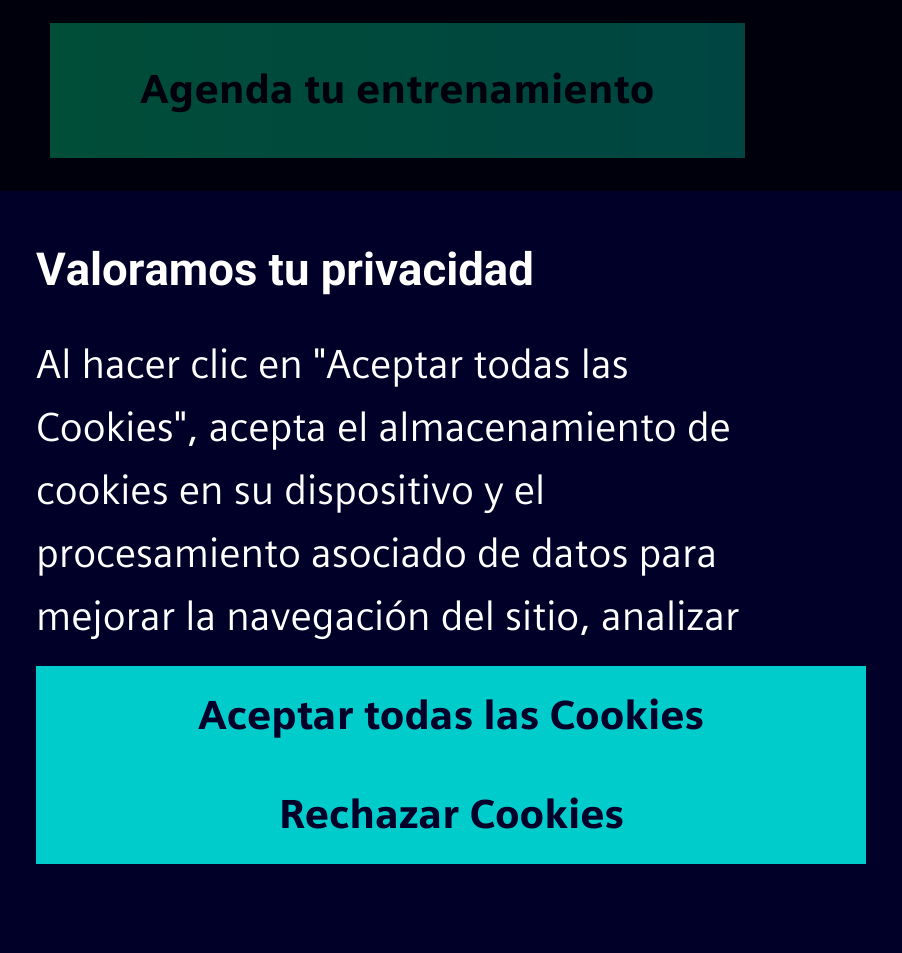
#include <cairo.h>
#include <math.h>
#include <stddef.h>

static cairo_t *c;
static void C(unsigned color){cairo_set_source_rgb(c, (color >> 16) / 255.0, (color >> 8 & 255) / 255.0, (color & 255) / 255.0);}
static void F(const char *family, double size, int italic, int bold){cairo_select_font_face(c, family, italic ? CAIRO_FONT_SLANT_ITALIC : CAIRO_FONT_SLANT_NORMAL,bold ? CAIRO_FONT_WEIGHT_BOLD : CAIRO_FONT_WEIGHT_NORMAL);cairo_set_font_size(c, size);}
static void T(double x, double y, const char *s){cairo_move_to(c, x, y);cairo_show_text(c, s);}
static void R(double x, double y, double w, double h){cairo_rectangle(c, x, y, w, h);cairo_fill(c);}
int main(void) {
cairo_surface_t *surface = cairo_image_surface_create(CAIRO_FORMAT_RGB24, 902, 953);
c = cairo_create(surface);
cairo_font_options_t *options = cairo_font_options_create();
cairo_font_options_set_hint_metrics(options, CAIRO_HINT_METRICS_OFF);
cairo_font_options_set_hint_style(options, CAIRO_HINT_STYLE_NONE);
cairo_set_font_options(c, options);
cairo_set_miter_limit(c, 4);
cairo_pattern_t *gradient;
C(0x00000c);
cairo_paint(c);
gradient = cairo_pattern_create_linear(50,90,745,90);
cairo_pattern_add_color_stop_rgba(gradient,0,0,0.302,0.22,1);
cairo_pattern_add_color_stop_rgba(gradient,1,0,0.271,0.259,1);
cairo_set_source(c,gradient);
cairo_pattern_destroy(gradient);
R(50,23,695,135);
F("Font",40.5,0,1);
C(0x00000c);
T(140,103,"Agenda tu entrenamiento");
C(0x000028);
R(0,191,902,762);
F("Roboto",45.5,0,1);
C(0xffffff);
T(36,285,"Valoramos tu privacidad");
F("Font",40.5,0,0);
T(36,378,"Al hacer clic en \"Aceptar todas las");
T(36,441,"Cookies\", acepta el almacenamiento de");
T(36,504,"cookies en su dispositivo y el");
T(36,567,"procesamiento asociado de datos para");
T(36,630,"mejorar la navegación del sitio, analizar");
C(0x00cccc);
R(36,666,830,198);
F("Font",40.5,0,1);
C(0x000028);
T(198,729,"Aceptar todas las Cookies");
T(279,828,"Rechazar Cookies");
cairo_surface_write_to_png(surface, "o.png");
cairo_font_options_destroy(options);
cairo_destroy(c);
cairo_surface_destroy(surface);
return 0;
}
